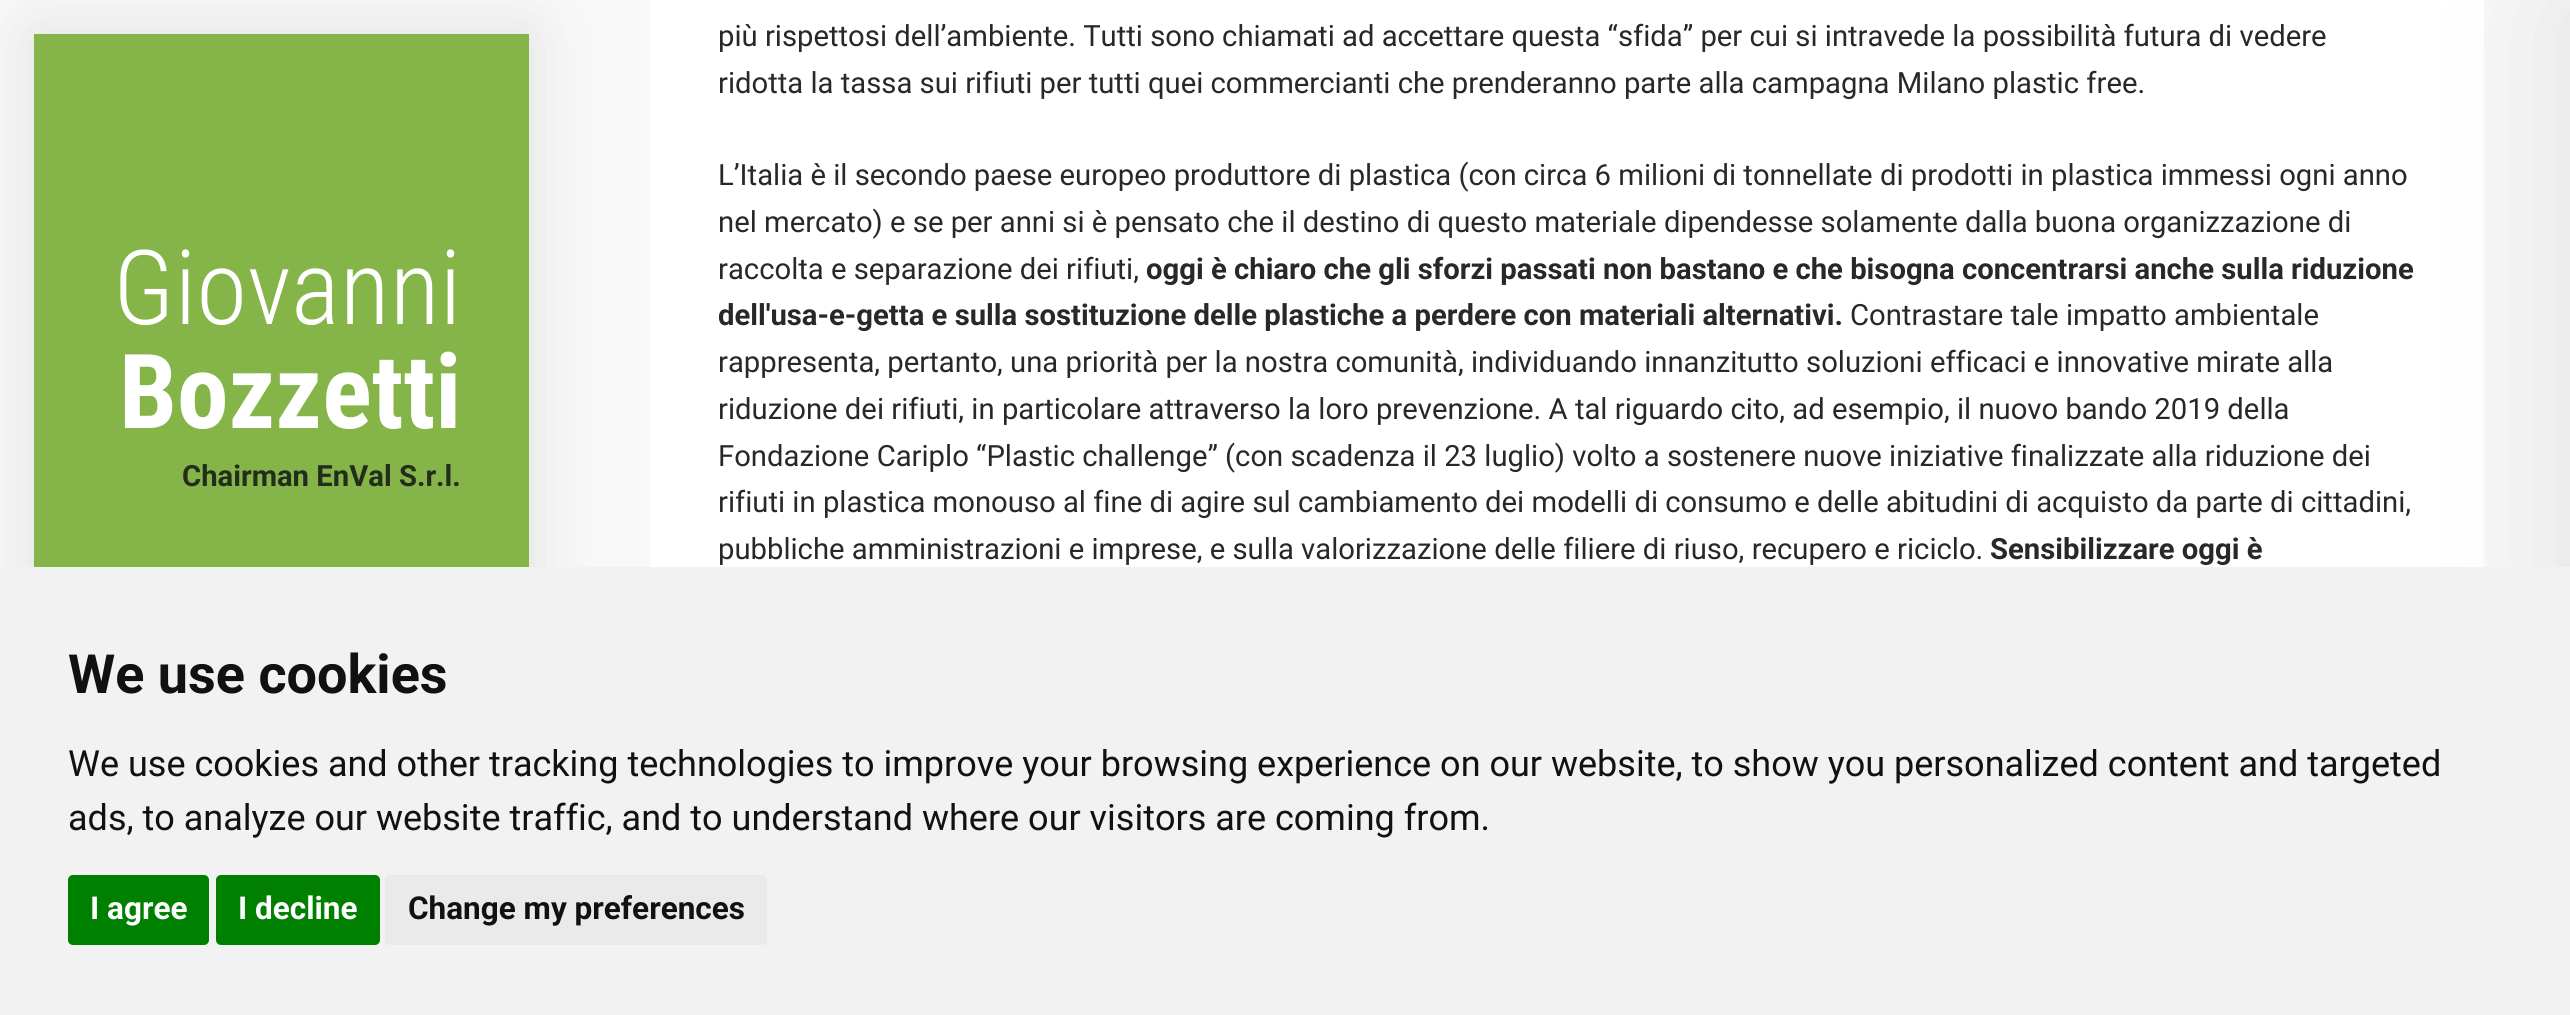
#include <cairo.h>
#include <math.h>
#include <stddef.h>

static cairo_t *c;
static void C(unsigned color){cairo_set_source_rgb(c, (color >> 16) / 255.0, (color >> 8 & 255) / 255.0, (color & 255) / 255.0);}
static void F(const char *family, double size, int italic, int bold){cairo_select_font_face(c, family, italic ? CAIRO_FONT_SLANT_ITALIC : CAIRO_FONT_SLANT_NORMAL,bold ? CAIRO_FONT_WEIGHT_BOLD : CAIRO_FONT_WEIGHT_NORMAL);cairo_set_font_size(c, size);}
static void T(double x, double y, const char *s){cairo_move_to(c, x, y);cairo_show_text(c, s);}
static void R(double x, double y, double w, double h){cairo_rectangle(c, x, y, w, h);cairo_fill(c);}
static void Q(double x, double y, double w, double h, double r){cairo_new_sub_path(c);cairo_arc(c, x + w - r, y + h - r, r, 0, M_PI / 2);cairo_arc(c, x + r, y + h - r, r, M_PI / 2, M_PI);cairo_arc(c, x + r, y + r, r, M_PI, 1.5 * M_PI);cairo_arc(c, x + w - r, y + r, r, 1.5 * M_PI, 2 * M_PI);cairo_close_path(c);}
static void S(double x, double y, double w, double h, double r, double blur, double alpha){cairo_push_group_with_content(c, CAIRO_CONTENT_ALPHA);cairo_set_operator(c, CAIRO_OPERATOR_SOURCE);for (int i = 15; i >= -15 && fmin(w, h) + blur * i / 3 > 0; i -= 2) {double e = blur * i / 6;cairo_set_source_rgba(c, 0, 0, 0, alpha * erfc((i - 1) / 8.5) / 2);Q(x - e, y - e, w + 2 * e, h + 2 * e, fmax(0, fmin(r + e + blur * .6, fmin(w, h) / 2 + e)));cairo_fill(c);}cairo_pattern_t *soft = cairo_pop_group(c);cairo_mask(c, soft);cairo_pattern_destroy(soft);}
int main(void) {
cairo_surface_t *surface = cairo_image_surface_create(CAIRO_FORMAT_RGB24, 2570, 1015);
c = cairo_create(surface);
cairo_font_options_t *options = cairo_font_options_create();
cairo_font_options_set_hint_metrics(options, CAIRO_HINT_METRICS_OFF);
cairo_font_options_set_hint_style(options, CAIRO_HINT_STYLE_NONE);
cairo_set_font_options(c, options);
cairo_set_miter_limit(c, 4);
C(0xf8f8f8);
cairo_paint(c);
C(0x000000);
S(34,34,495,949,0,34,.1);
C(0x85b448);
R(34,34,495,533);
F("Roboto Condensed Light",103.5,0,0);
C(0xffffff);
T(113,324,"Giovanni");
F("Roboto Condensed",103.5,0,1);
T(119,428,"Bozzetti");
F("Roboto",29.25,0,1);
C(0x232d1c);
T(182,486,"Chairman EnVal S.r.l.");
C(0xffffff);
R(650,0,1834,567);
F("Roboto",29.25,0,0);
C(0x282828);
T(718,46,"più rispettosi dell’ambiente. Tutti sono chiamati ad accettare questa “sfida” per cui si intravede la possibilità futura di vedere");
T(718,93,"ridotta la tassa sui rifiuti per tutti quei commercianti che prenderanno parte alla campagna Milano plastic free.");
T(718,185,"L’Italia è il secondo paese europeo produttore di plastica (con circa 6 milioni di tonnellate di prodotti in plastica immessi ogni anno");
T(718,232,"nel mercato) e se per anni si è pensato che il destino di questo materiale dipendesse solamente dalla buona organizzazione di");
T(718,279,"raccolta e separazione dei rifiuti,");
F("Roboto",29.25,0,1);
T(1146,279,"oggi è chiaro che gli sforzi passati non bastano e che bisogna concentrarsi anche sulla riduzione");
T(718,325,"dell'usa-e-getta e sulla sostituzione delle plastiche a perdere con materiali alternativi.");
F("Roboto",29.25,0,0);
T(1850,325,"Contrastare tale impatto ambientale");
T(718,372,"rappresenta, pertanto, una priorità per la nostra comunità, individuando innanzitutto soluzioni efficaci e innovative mirate alla");
T(718,419,"riduzione dei rifiuti, in particolare attraverso la loro prevenzione. A tal riguardo cito, ad esempio, il nuovo bando 2019 della");
T(718,466,"Fondazione Cariplo “Plastic challenge” (con scadenza il 23 luglio) volto a sostenere nuove iniziative finalizzate alla riduzione dei");
T(718,512,"rifiuti in plastica monouso al fine di agire sul cambiamento dei modelli di consumo e delle abitudini di acquisto da parte di cittadini,");
T(718,559,"pubbliche amministrazioni e imprese, e sulla valorizzazione delle filiere di riuso, recupero e riciclo.");
F("Roboto",29.25,0,1);
T(1990,559,"Sensibilizzare oggi è");
C(0x000000);
S(2567,5,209,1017,0,68.5,.1);
C(0xf2f2f2);
R(0,567,2570,448);
F("Roboto",54,0,1);
C(0x111111);
T(68,693,"We use cookies");
F("Roboto",36,0,0);
T(68,776,"We use cookies and other tracking technologies to improve your browsing experience on our website, to show you personalized content and targeted");
T(68,830,"ads, to analyze our website traffic, and to understand where our visitors are coming from.");
C(0x008000);
Q(68,875,141,70,5);
cairo_fill(c);
F("Roboto",31.5,0,1);
C(0xffffff);
T(90,919,"I agree");
C(0x008000);
Q(216,875,164,70,5);
cairo_fill(c);
C(0xffffff);
T(238,919,"I decline");
C(0xeaeaea);
Q(385,875,382,70,5);
cairo_fill(c);
C(0x111111);
T(408,919,"Change my preferences");
cairo_surface_write_to_png(surface, "o.png");
cairo_font_options_destroy(options);
cairo_destroy(c);
cairo_surface_destroy(surface);
return 0;
}
